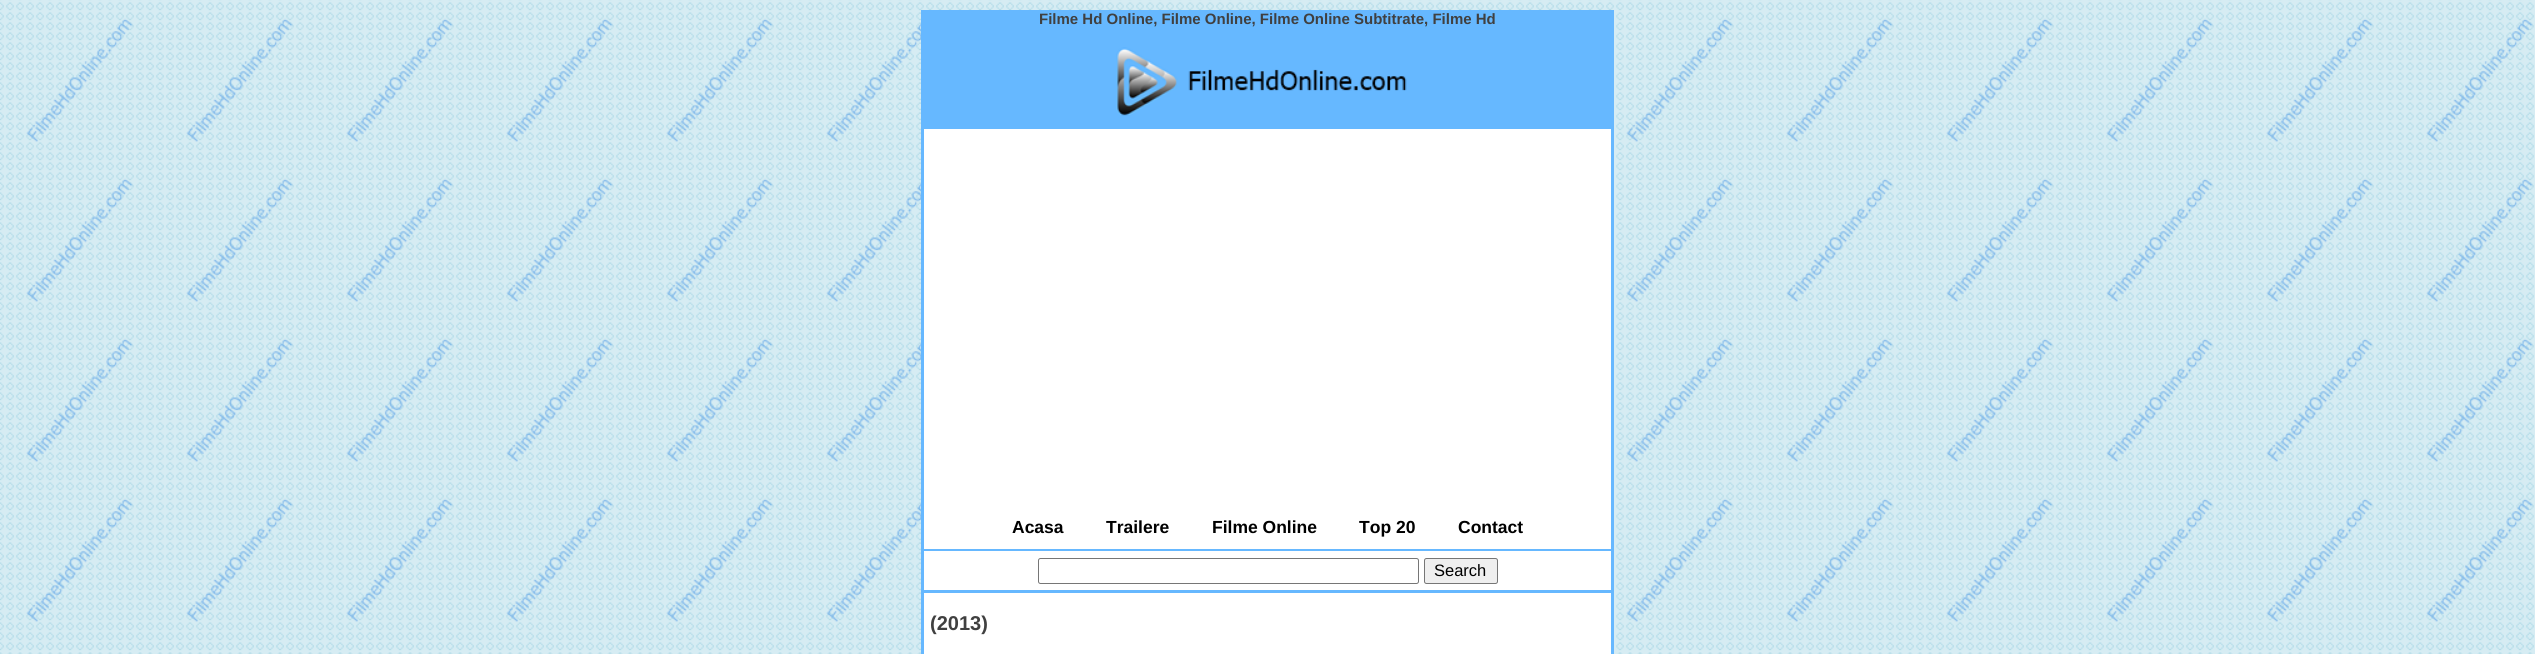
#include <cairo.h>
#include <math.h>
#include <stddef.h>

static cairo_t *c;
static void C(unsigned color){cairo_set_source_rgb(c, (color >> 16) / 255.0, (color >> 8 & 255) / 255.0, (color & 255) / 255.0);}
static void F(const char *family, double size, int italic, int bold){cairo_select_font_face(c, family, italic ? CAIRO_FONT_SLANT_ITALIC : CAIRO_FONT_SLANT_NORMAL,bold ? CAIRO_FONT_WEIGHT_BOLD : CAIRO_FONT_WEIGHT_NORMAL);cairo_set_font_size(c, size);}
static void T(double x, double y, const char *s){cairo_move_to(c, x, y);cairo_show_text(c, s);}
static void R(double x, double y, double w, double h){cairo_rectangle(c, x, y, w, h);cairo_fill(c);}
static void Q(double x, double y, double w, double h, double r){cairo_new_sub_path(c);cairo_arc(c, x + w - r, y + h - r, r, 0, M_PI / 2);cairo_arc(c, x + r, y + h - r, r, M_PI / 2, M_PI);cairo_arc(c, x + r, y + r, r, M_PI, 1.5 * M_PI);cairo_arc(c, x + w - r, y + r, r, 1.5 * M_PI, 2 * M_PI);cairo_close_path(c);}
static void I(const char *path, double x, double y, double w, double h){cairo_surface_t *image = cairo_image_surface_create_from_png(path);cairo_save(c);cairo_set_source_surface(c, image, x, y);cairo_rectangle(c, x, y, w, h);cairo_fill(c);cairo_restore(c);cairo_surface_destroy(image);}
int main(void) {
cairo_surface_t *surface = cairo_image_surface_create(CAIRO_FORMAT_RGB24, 2535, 654);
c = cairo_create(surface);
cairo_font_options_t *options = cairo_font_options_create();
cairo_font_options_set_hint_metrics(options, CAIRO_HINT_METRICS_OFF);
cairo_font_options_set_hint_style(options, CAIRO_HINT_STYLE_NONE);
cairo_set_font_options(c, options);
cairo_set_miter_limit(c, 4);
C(0xffffff);
cairo_paint(c);
I("1.png",0,0,2535,654);
C(0x66b8ff);
R(1611,10,3,644);
R(921,10,3,644);
R(924,10,687,119);
F("Liberation Sans",15,0,1);
C(0x404040);
T(1039,24,"Filme Hd Online, Filme Online, Filme Online Subtitrate, Filme Hd");
I("2.png",1116,47,291,69);
C(0xffffff);
R(924,129,687,420);
C(0x66b8ff);
R(924,549,687,2);
F("Liberation Sans",17.5,0,1);
C(0x000000);
T(1012,533,"Acasa");
T(1106,533,"Trailere");
T(1212,533,"Filme Online");
T(1359,533,"Top 20");
T(1458,533,"Contact");
C(0xffffff);
R(924,551,687,39);
C(0x66b8ff);
R(924,590,687,3);
Q(1038.5,558.5,380,25,2);
C(0x767676);
cairo_set_line_width(c,1);
cairo_stroke(c);
C(0xefefef);
Q(1424.5,558.5,73,25,2);
cairo_fill_preserve(c);
C(0x767676);
cairo_stroke(c);
F("Liberation Sans",16.5,0,0);
C(0x000000);
T(1434,576,"Search");
C(0xffffff);
R(924,593,687,61);
F("Liberation Sans",20,0,1);
C(0x404040);
T(930,630,"(2013)");
cairo_surface_write_to_png(surface, "o.png");
cairo_font_options_destroy(options);
cairo_destroy(c);
cairo_surface_destroy(surface);
return 0;
}
